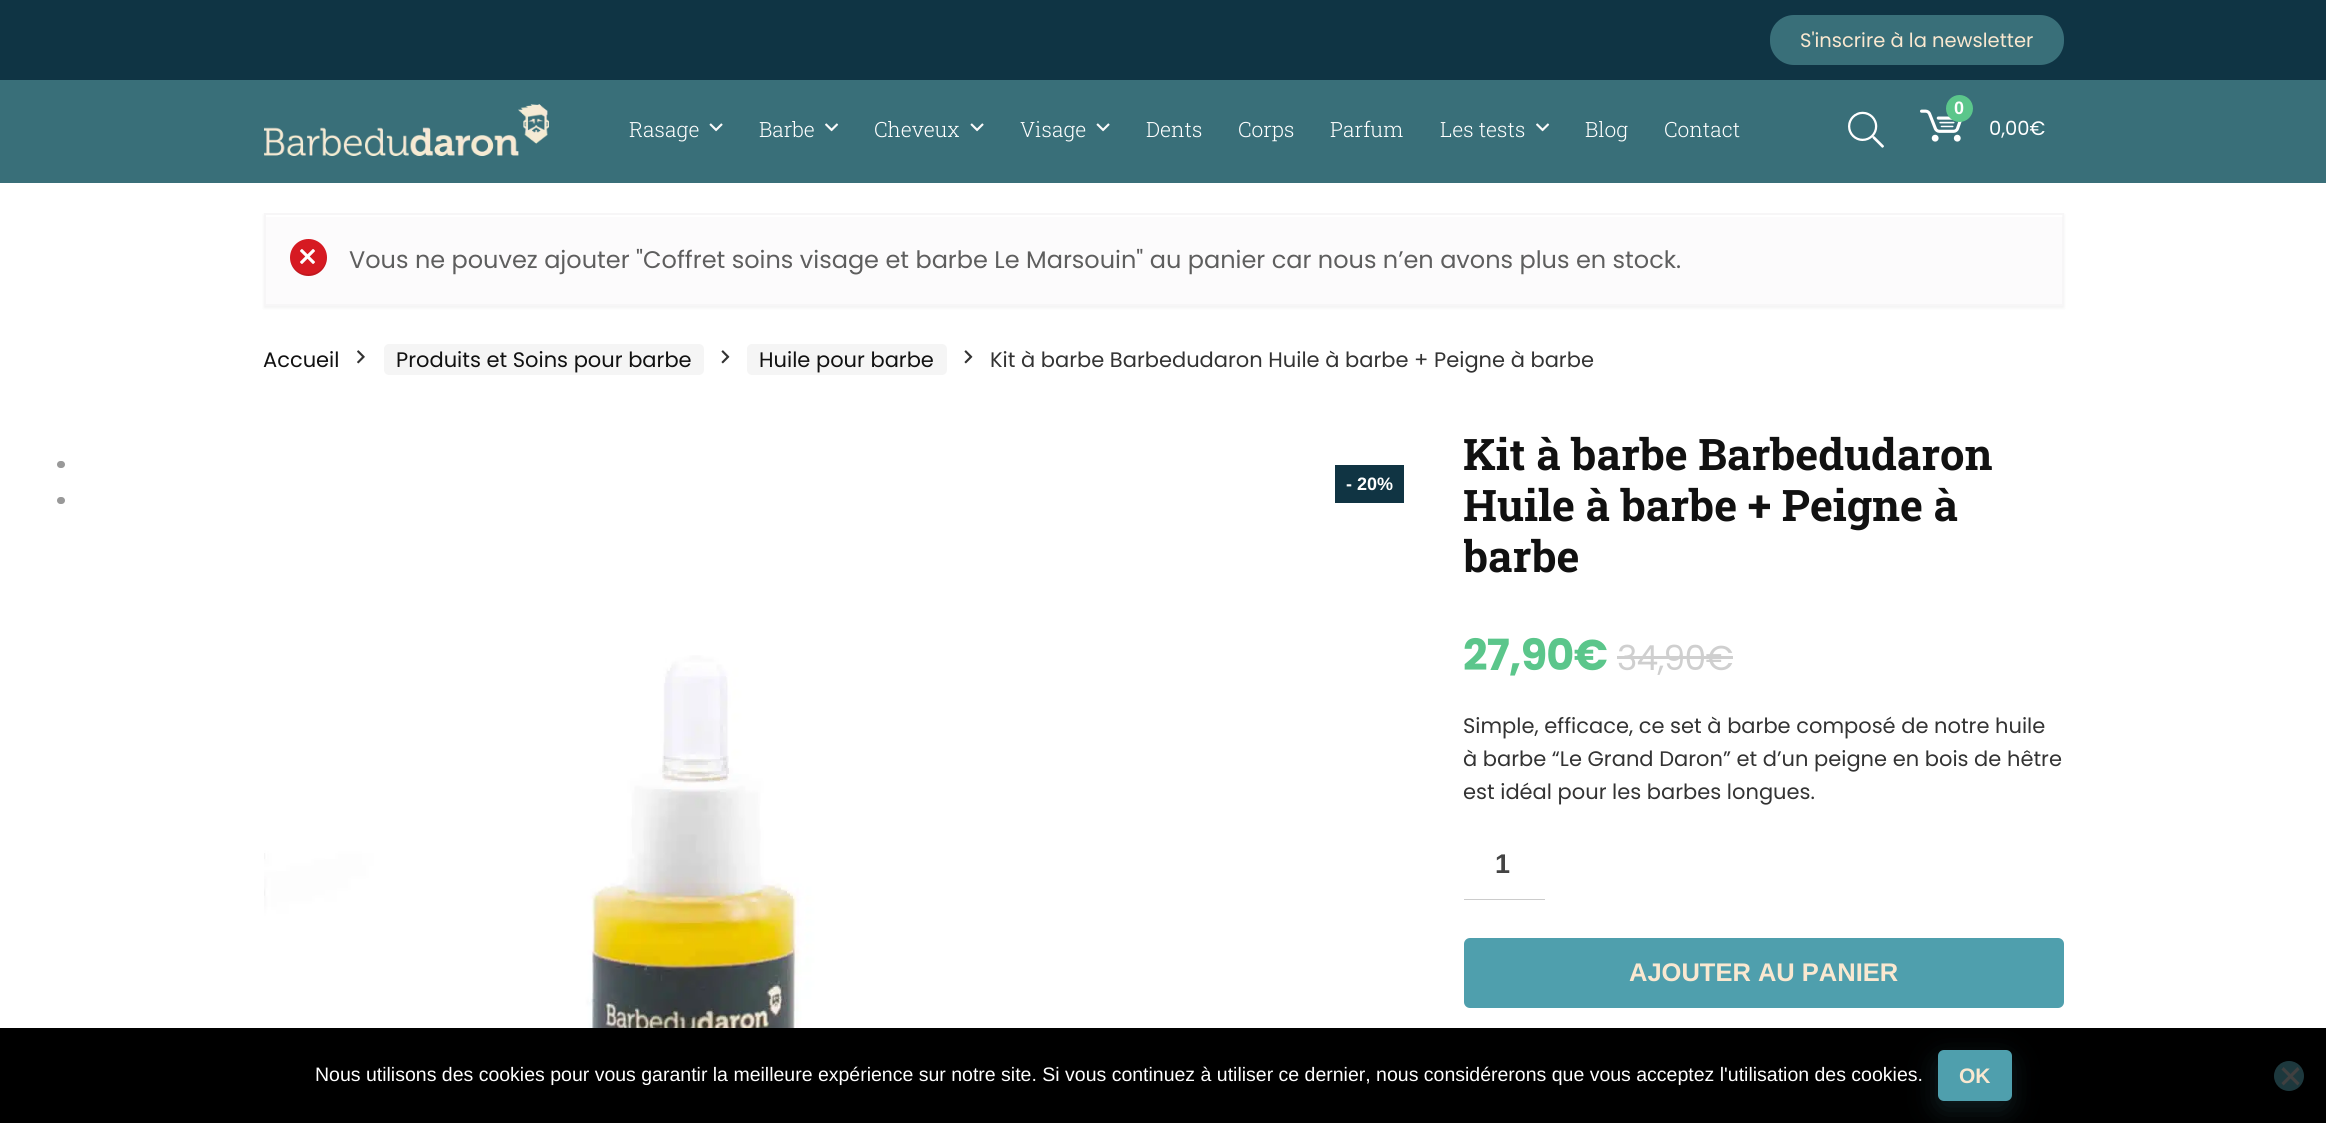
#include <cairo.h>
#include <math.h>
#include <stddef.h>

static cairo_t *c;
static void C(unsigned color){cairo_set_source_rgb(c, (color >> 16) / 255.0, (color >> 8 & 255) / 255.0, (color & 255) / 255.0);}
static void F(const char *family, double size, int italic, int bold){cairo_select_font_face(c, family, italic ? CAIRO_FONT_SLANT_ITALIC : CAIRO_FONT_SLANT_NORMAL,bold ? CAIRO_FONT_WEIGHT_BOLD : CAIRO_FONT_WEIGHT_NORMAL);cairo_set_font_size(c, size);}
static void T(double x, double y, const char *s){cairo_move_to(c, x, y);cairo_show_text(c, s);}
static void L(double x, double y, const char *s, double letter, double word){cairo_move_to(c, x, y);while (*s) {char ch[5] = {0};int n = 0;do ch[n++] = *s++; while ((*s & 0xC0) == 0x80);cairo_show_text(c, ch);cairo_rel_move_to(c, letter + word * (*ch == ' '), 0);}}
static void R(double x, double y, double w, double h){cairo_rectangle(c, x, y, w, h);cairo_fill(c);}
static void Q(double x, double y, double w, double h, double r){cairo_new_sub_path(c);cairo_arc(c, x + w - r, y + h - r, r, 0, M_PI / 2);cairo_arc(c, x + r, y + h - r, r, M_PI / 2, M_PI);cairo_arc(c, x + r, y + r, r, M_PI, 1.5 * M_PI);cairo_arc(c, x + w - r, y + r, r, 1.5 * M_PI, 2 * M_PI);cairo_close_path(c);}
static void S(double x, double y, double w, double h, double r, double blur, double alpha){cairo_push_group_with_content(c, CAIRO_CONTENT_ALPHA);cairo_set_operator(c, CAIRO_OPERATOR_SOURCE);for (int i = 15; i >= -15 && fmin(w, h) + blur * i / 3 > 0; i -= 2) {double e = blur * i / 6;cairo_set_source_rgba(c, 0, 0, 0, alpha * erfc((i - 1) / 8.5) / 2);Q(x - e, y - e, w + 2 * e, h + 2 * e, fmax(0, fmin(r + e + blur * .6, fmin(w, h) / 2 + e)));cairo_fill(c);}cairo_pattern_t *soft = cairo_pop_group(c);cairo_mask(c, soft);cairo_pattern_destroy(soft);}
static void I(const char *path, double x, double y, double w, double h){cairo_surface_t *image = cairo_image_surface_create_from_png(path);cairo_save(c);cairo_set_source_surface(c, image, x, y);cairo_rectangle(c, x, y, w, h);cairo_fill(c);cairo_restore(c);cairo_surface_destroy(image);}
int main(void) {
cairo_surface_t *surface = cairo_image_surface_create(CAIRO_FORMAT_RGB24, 2326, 1123);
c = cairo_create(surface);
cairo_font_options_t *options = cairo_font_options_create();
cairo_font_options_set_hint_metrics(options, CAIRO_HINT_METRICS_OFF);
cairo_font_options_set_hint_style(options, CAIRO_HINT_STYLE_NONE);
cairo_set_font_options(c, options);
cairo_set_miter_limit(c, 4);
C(0xffffff);
cairo_paint(c);
C(0x396f79);
R(0,80,2326,103);
C(0x0f3444);
R(0,0,2326,80);
C(0x396f79);
Q(1770,15,294,50,24);
cairo_fill(c);
F("Poppins",19.5,0,0);
C(0xfae8d0);
T(1800,47,"S'inscrire à la newsletter");
I("1.png",264,104,285,52);
F("Roboto Slab Light",21,0,0);
C(0xffffff);
T(629,137,"Rasage");
I("2.png",709,123,14,9);
T(759,137,"Barbe");
I("3.png",825,123,14,9);
T(874,137,"Cheveux");
I("2.png",970,123,14,9);
T(1020,137,"Visage");
I("2.png",1096,123,14,9);
T(1146,137,"Dents");
T(1238,137,"Corps");
T(1330,137,"Parfum");
T(1440,137,"Les tests");
I("3.png",1536,123,14,9);
T(1585,137,"Blog");
T(1664,137,"Contact");
I("4.png",1848,111,36,37);
I("5.png",1920,109,42,33);
C(0x5bc68b);
cairo_arc(c,1959.5,108.5,13.5,0,2 * M_PI);
cairo_fill(c);
F("Liberation Sans",18,0,1);
C(0xffffff);
T(1954,114,"0");
F("Poppins",19.5,0,0);
T(1989,135,"0,00€");
C(0x000000);
S(264,215,1800,93,0,1.5,.05);
C(0xfcfbfc);
R(264,213,1800,93);
C(0xffffff);
R(266,215,1797,2);
cairo_rectangle(c,265,214,1798,91);
cairo_set_source_rgba(c,0.933,0.933,0.933,0.33);
cairo_stroke(c);
C(0xd61a22);
cairo_arc(c,308.5,257.5,18.5,0,2 * M_PI);
cairo_fill(c);
cairo_set_source_rgba(c,0,0,0,0.1);
cairo_new_path(c);
cairo_move_to(c,326.5,254);
cairo_curve_to(c,328.5,279,291,281.5,290,256.5);
cairo_curve_to(c,290,260.5,291,264.5,293,268);
cairo_curve_to(c,304.5,284.5,330,273.5,326.5,254);
cairo_close_path(c);
cairo_fill(c);
I("6.png",300,249,15,15);
F("Poppins",24,0,0);
C(0x5e5e5e);
T(349,268,"Vous ne pouvez ajouter \"Coffret soins visage et barbe Le Marsouin\" au panier car nous n’en avons plus en stock.");
F("Poppins",21,0,0);
C(0x111111);
T(263,367,"Accueil");
I("7.png",357,350,8,14);
C(0xf5f5f5);
Q(384,344,320,31,5);
cairo_fill(c);
C(0x111111);
T(396,367,"Produits et Soins pour barbe");
I("8.png",721,350,9,14);
C(0xf5f5f5);
Q(747,344,200,31,5);
cairo_fill(c);
C(0x111111);
T(759,367,"Huile pour barbe");
I("8.png",964,350,9,14);
C(0x333333);
T(990,367,"Kit à barbe Barbedudaron Huile à barbe + Peigne à barbe");
C(0x999999);
Q(55.5,459.5,11,10,5);
cairo_fill_preserve(c);
C(0xffffff);
cairo_set_line_width(c,3);
cairo_stroke(c);
C(0x999999);
Q(55.5,495.5,11,10,5);
cairo_fill_preserve(c);
C(0xffffff);
cairo_stroke(c);
C(0x103443);
R(1335,465,69,38);
F("Liberation Sans",18,0,1);
C(0xffffff);
T(1346,490,"- 20%");
I("9.png",264,655,879,373);
F("Roboto Slab",43.5,0,1);
C(0x111111);
T(1463,470,"Kit à barbe Barbedudaron");
T(1463,521,"Huile à barbe + Peigne à");
cairo_save(c);
cairo_rectangle(c,1464,428,600,280);
cairo_clip(c);
T(1463,572,"barbe");
cairo_restore(c);
F("Poppins",43,0,1);
C(0x5bc68b);
L(1463,670,"27,90€",-.75,0);
F("Poppins",34.5,0,0);
C(0xcfcfcf);
L(1617,670,"34,90€",-.75,0);
R(1617,656,116,3);
F("Poppins",21,0,0);
C(0x333333);
T(1463,733,"Simple, efficace, ce set à barbe composé de notre huile");
T(1463,766,"à barbe “Le Grand Daron” et d’un peigne en bois de hêtre");
T(1463,799,"est idéal pour les barbes longues.");
C(0xcccccc);
R(1464,899,81,1);
F("Liberation Sans",27,0,1);
C(0x444444);
T(1495,873,"1");
C(0x4f9fad);
Q(1464,938,600,70,6);
cairo_fill(c);
F("Liberation Sans",25.5,0,1);
C(0xfae8d0);
T(1629,981,"AJOUTER AU PANIER");
C(0x000000);
R(0,1028,2326,95);
F("Liberation Sans",19.5,0,0);
C(0xffffff);
T(315,1081,"Nous utilisons des cookies pour vous garantir la meilleure expérience sur notre site. Si vous continuez à utiliser ce dernier, nous considérerons que vous acceptez l'utilisation des cookies.");
C(0x4f9fad);
S(1937,1059,73,51,6,14,.2);
C(0x4f9fad);
Q(1938,1050,74,51,6);
cairo_fill(c);
F("Liberation Sans",21,0,1);
C(0xfae8d0);
T(1959,1083,"OK");
C(0x1d383d);
cairo_new_path(c);
cairo_arc(c,2289,1076,15,0,2 * M_PI);
cairo_fill(c);
C(0x404040);
cairo_new_path(c);
cairo_move_to(c,2297.5,1067);
cairo_line_to(c,2299.5,1069.5);
cairo_line_to(c,2283.5,1085.5);
cairo_line_to(c,2281.5,1083);
cairo_close_path(c);
cairo_fill(c);
cairo_new_path(c);
cairo_move_to(c,2281.5,1069.5);
cairo_line_to(c,2283.5,1067);
cairo_line_to(c,2299.5,1083);
cairo_line_to(c,2297.5,1085.5);
cairo_close_path(c);
cairo_fill(c);
cairo_surface_write_to_png(surface, "o.png");
cairo_font_options_destroy(options);
cairo_destroy(c);
cairo_surface_destroy(surface);
return 0;
}
